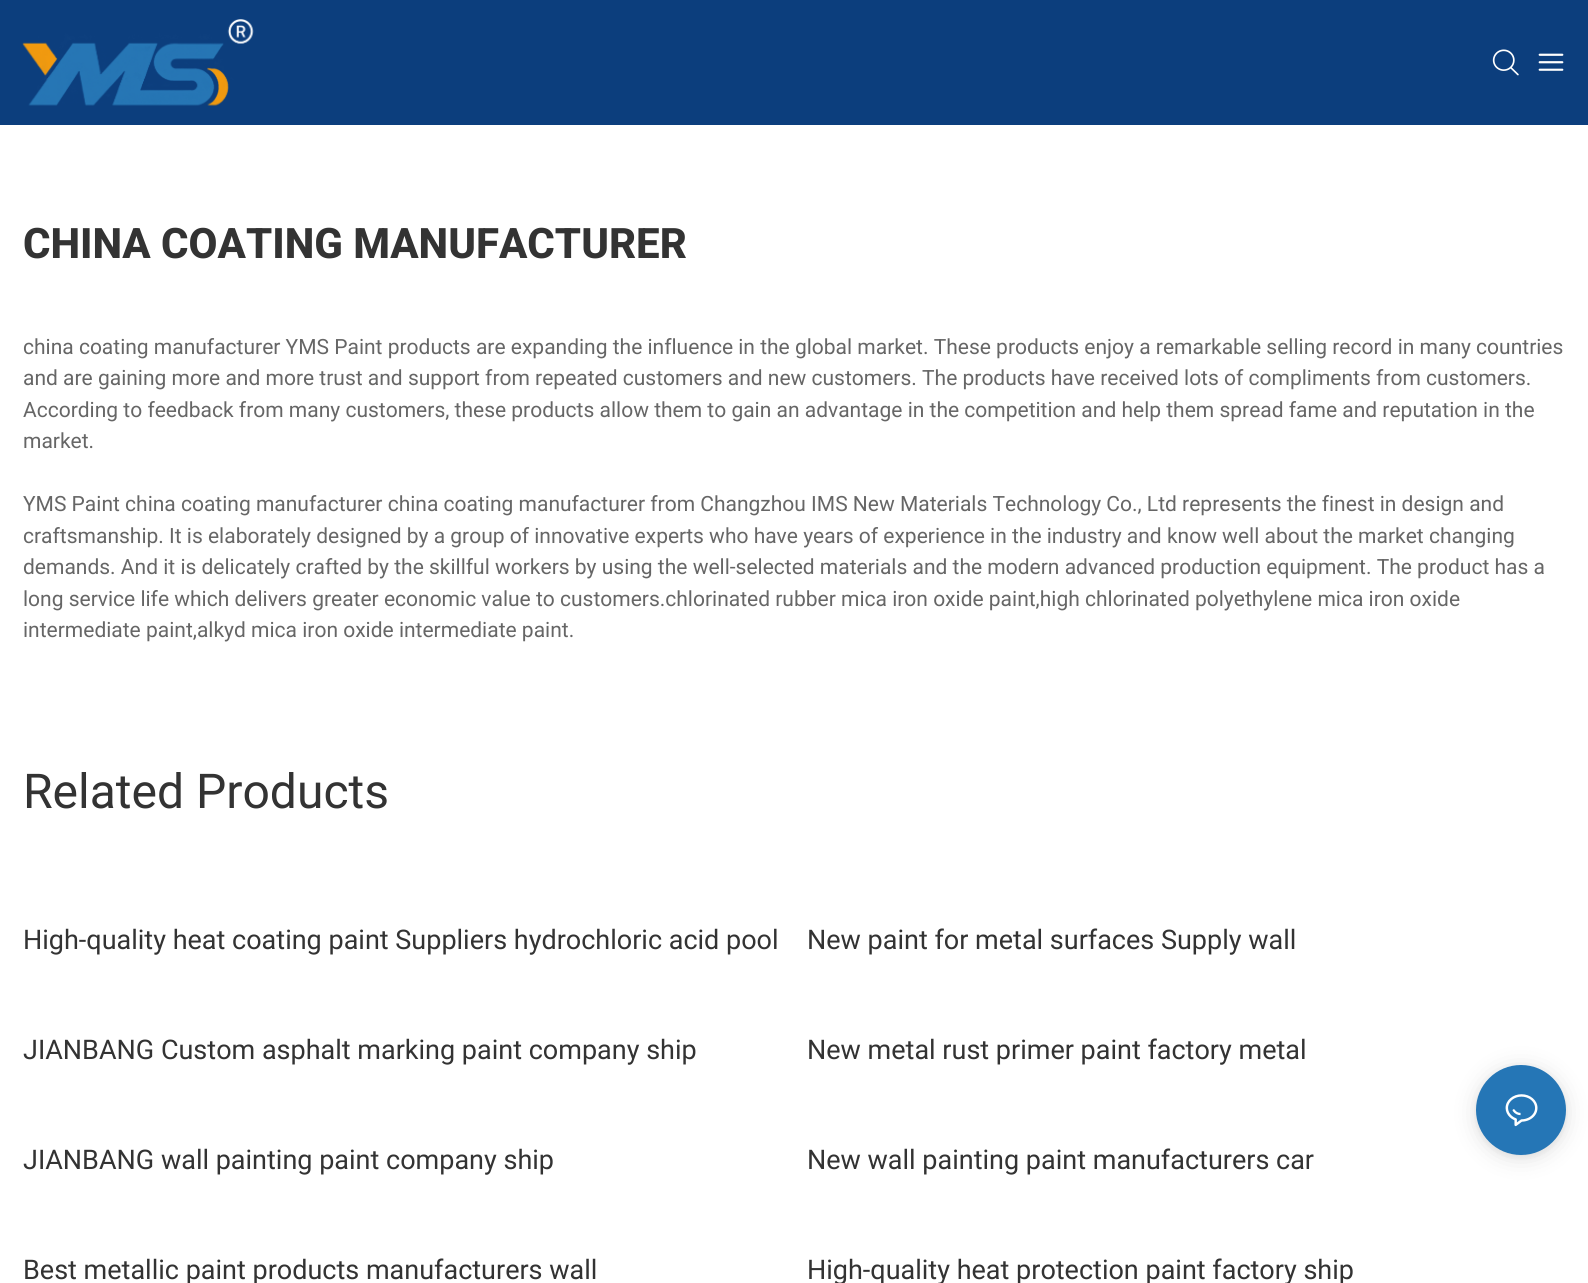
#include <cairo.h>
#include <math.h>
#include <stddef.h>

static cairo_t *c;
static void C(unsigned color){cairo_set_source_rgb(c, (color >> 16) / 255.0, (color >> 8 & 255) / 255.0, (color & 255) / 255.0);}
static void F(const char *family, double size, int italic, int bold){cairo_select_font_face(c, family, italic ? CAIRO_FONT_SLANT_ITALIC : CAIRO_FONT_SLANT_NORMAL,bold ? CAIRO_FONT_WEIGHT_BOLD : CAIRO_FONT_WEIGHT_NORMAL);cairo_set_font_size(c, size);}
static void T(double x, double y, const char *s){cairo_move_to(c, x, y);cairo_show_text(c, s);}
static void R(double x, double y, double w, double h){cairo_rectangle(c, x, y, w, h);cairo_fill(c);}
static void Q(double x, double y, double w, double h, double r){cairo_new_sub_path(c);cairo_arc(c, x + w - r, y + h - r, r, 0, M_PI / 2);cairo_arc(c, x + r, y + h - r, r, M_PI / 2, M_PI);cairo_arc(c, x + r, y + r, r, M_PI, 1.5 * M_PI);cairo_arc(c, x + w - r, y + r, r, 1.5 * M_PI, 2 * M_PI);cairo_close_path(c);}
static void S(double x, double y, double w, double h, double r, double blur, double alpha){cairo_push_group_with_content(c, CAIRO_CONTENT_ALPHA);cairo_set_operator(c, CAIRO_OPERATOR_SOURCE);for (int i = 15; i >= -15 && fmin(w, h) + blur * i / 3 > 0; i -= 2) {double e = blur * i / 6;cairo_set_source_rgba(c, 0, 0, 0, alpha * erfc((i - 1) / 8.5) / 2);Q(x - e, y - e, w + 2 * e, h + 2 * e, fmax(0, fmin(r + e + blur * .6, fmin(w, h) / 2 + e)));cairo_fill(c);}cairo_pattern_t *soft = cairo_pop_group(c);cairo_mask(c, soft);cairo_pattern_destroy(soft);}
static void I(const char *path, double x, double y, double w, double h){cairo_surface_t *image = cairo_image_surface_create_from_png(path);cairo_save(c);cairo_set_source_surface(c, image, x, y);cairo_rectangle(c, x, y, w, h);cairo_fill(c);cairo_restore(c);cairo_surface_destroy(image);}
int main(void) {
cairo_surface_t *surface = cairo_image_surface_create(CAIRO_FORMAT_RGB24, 1588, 1283);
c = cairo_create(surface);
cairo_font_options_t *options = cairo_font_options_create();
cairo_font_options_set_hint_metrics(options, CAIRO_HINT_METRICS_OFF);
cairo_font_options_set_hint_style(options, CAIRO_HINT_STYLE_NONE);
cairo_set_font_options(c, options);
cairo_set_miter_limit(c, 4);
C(0xffffff);
cairo_paint(c);
C(0x0c3e7d);
R(0,0,1588,125);
I("1.png",22,19,232,87);
I("2.png",1492,49,27,27);
I("3.png",1538,53,26,18);
F("Roboto ExtraBold",42,0,0);
C(0x333333);
T(23,258,"CHINA COATING MANUFACTURER");
F("Roboto",21,0,0);
C(0x666666);
T(23,354,"china coating manufacturer YMS Paint products are expanding the influence in the global market. These products enjoy a remarkable selling record in many countries");
T(23,385,"and are gaining more and more trust and support from repeated customers and new customers. The products have received lots of compliments from customers.");
T(23,417,"According to feedback from many customers, these products allow them to gain an advantage in the competition and help them spread fame and reputation in the");
T(23,448,"market.");
T(23,511,"YMS Paint china coating manufacturer china coating manufacturer from Changzhou IMS New Materials Technology Co., Ltd represents the finest in design and");
T(23,543,"craftsmanship. It is elaborately designed by a group of innovative experts who have years of experience in the industry and know well about the market changing");
T(23,574,"demands. And it is delicately crafted by the skillful workers by using the well-selected materials and the modern advanced production equipment. The product has a");
T(23,606,"long service life which delivers greater economic value to customers.chlorinated rubber mica iron oxide paint,high chlorinated polyethylene mica iron oxide");
T(23,637,"intermediate paint,alkyd mica iron oxide intermediate paint.");
F("Roboto",48,0,0);
C(0x333333);
T(23,808,"Related Products");
F("Roboto",27,0,0);
T(23,949,"High-quality heat coating paint Suppliers hydrochloric acid pool");
T(807,949,"New paint for metal surfaces Supply wall");
T(23,1059,"JIANBANG Custom asphalt marking paint company ship");
T(807,1059,"New metal rust primer paint factory metal");
T(23,1169,"JIANBANG wall painting paint company ship");
T(807,1169,"New wall painting paint manufacturers car");
T(23,1279,"Best metallic paint products manufacturers wall");
T(807,1279,"High-quality heat protection paint factory ship");
C(0x000000);
S(1476,1068,90,90,45,12,.12);
S(1476,1067,90,90,45,3,.06);
C(0x2576b6);
cairo_arc(c,1521,1110,45,0,2 * M_PI);
cairo_fill(c);
I("4.png",1505,1094,33,33);
cairo_surface_write_to_png(surface, "o.png");
cairo_font_options_destroy(options);
cairo_destroy(c);
cairo_surface_destroy(surface);
return 0;
}
